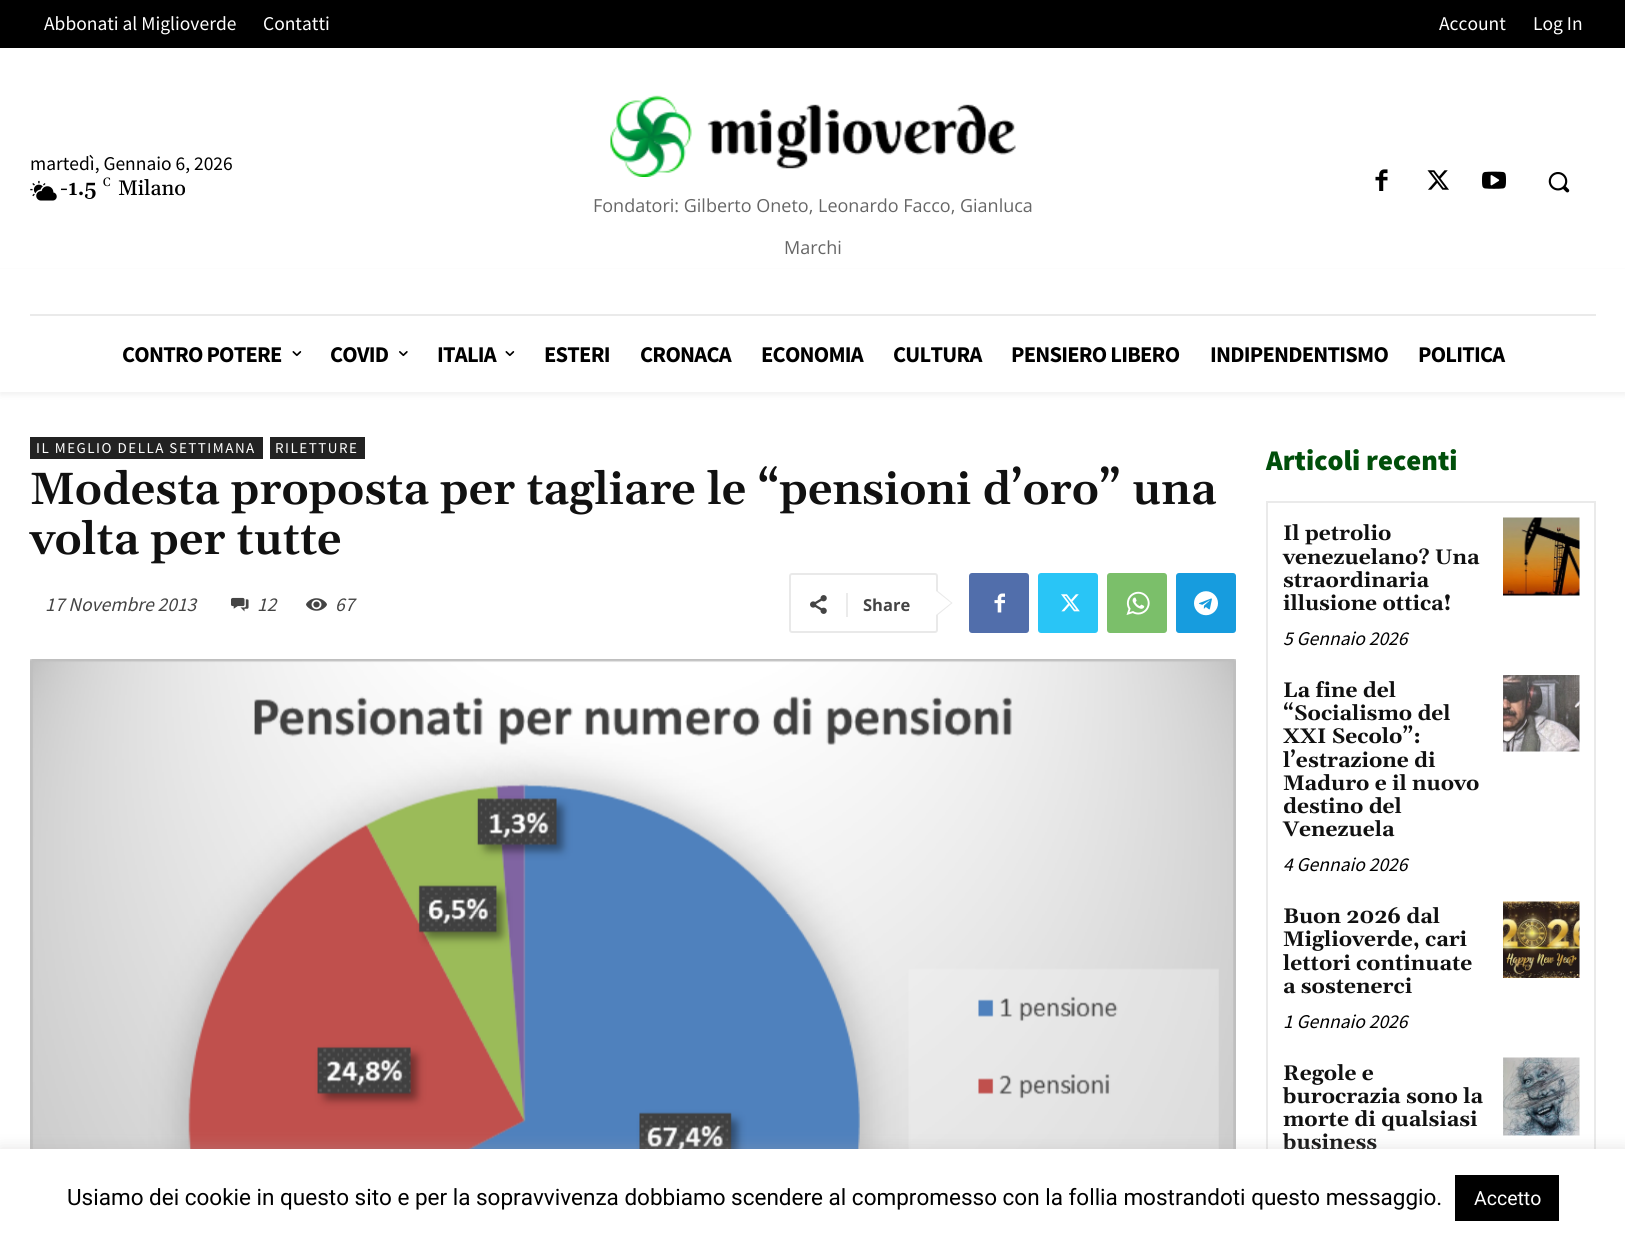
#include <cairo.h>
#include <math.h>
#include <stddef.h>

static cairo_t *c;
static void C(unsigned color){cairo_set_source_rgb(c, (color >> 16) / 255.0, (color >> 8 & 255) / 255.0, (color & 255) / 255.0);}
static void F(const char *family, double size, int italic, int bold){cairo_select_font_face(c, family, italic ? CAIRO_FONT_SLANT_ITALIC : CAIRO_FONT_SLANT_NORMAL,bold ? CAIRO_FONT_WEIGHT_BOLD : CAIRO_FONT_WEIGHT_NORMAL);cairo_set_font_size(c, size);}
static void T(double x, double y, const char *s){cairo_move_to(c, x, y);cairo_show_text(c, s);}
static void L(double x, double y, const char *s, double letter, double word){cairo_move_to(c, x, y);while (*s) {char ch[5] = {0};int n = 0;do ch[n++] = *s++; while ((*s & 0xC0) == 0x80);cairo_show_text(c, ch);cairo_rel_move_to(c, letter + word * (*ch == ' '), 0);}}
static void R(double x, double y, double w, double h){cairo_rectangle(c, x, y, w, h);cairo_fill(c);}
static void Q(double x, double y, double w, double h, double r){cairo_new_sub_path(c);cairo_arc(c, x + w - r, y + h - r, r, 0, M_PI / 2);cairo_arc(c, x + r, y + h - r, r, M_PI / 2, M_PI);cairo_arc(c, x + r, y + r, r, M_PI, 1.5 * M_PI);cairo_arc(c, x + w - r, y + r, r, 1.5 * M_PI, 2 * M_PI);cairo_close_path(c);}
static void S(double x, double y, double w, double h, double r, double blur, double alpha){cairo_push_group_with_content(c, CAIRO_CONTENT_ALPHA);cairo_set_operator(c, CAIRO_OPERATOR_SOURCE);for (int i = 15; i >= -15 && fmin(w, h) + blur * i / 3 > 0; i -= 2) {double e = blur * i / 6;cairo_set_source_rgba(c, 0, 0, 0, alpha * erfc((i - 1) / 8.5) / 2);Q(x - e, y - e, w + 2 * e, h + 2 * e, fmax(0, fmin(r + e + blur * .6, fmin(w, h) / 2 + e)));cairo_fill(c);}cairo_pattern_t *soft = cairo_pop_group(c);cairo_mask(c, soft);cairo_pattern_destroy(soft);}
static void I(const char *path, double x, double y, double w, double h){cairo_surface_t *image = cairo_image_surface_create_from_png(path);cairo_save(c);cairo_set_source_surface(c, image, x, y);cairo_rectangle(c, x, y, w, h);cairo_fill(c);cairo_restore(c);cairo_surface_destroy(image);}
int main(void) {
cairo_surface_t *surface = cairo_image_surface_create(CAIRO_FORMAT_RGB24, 1625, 1239);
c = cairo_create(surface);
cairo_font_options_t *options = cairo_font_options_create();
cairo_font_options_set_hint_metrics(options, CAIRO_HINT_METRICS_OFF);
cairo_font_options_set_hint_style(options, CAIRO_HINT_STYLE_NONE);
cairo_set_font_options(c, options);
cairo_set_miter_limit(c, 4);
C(0xffffff);
cairo_paint(c);
C(0x000000);
R(0,0,1625,48);
F("Source Sans Pro",19.5,0,0);
C(0xffffff);
T(44,30,"Abbonati al Miglioverde");
T(263,30,"Contatti");
T(1439,30,"Account");
T(1533,30,"Log In");
C(0x000000);
T(30,170,"martedì, Gennaio 6, 2026");
I("1.png",30,180,27,21);
F("Gelasio SemiBold",21,0,0);
T(60,195,"-1.5");
F("Gelasio",12,0,0);
T(103,186,"C");
F("Gelasio Medium",21,0,0);
T(118,195,"Milano");
I("2.png",1375,169,13,22);
I("3.png",1427,170,22,20);
I("4.png",1482,171,24,18);
I("5.png",1548,172,22,21);
I("6.png",610,95,406,82);
F("Open Sans",18,0,0);
C(0x666666);
T(593,212,"Fondatori: Gilberto Oneto, Leonardo Facco, Gianluca");
T(784,254,"Marchi");
C(0xeaeaea);
R(30,314,1566,2);
cairo_save(c);
cairo_set_fill_rule(c,CAIRO_FILL_RULE_EVEN_ODD);
cairo_new_path(c);
cairo_move_to(c,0,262);
cairo_line_to(c,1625,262);
cairo_line_to(c,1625,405);
cairo_line_to(c,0,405);
cairo_close_path(c);
cairo_move_to(c,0,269);
cairo_line_to(c,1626,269);
cairo_line_to(c,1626,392);
cairo_line_to(c,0,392);
cairo_close_path(c);
cairo_clip(c);
C(0x000000);
S(0,272,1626,123,0,3,.06);
cairo_restore(c);
F("Source Sans Pro",22.5,0,1);
C(0x000000);
L(122,362,"CONTRO POTERE",-.75,0);
I("7.png",292,351,10,6);
L(330,362,"COVID",-.75,0);
I("8.png",399,351,9,6);
L(437,362,"ITALIA",-.75,0);
I("7.png",505,351,10,6);
L(544,362,"ESTERI",-.75,0);
L(640,362,"CRONACA",-.75,0);
L(761,362,"ECONOMIA",-.75,0);
L(893,362,"CULTURA",-.75,0);
L(1011,362,"PENSIERO LIBERO",-.75,0);
L(1210,362,"INDIPENDENTISMO",-.75,0);
L(1418,362,"POLITICA",-.75,0);
C(0x222222);
R(30,437,233,22);
F("Source Sans Pro",15,0,0);
C(0xffffff);
L(36,453,"IL MEGLIO DELLA SETTIMANA",1.5,0);
C(0x222222);
R(270,437,95,22);
C(0xffffff);
L(275,453,"RILETTURE",1.5,0);
F("Gelasio SemiBold",45,0,0);
C(0x111111);
T(30,504,"Modesta proposta per tagliare le “pensioni d’oro” una");
T(30,554,"volta per tutte");
F("Source Sans Pro",19.5,1,0);
C(0x444444);
T(45,611,"17 Novembre 2013");
I("9.png",231,597,18,15);
T(257,611,"12");
I("10.png",306,598,21,13);
T(335,611,"67");
Q(790,574,147,58,2);
C(0xe9e9e9);
cairo_stroke(c);
cairo_new_path(c);
cairo_move_to(c,936,616.5);
cairo_line_to(c,936,589.5);
cairo_line_to(c,952.5,603);
cairo_close_path(c);
cairo_fill(c);
I("11.png",810,595,17,19);
C(0xebebeb);
R(846,593,2,24);
F("Open Sans",16.5,0,1);
C(0x444444);
T(863,611,"Share");
C(0xffffff);
cairo_new_path(c);
cairo_move_to(c,936,615);
cairo_line_to(c,936,591);
cairo_line_to(c,951,603);
cairo_close_path(c);
cairo_fill(c);
C(0x516eab);
Q(969,573,60,60,3);
cairo_fill(c);
I("12.png",994,593,11,20);
C(0x29c5f6);
Q(1038,573,60,60,3);
cairo_fill(c);
I("13.png",1061,594,19,18);
C(0x7bbf6a);
Q(1107,573,60,60,3);
cairo_fill(c);
I("14.png",1126,591,24,24);
C(0x179cde);
Q(1176,573,60,60,3);
cairo_fill(c);
I("15.png",1194,591,24,25);
I("16.png",30,659,1206,490);
F("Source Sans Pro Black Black",28.5,0,0);
C(0x004f0a);
T(1266,470,"Articoli recenti");
cairo_rectangle(c,1267,502,328,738);
C(0xeaeaea);
cairo_stroke(c);
F("Gelasio",21,0,1);
C(0x111111);
T(1283,540,"Il petrolio");
T(1283,564,"venezuelano? Una");
T(1283,587,"straordinaria");
T(1283,610,"illusione ottica!");
F("Source Sans Pro",19.5,1,0);
C(0x000000);
T(1283,645,"5 Gennaio 2026");
I("17.png",1503,517,77,79);
F("Gelasio",21,0,1);
C(0x111111);
T(1283,697,"La fine del");
T(1283,720,"“Socialismo del");
T(1283,743,"XXI Secolo”:");
T(1283,767,"l’estrazione di");
T(1283,790,"Maduro e il nuovo");
T(1283,813,"destino del");
T(1283,836,"Venezuela");
F("Source Sans Pro",19.5,1,0);
C(0x000000);
T(1283,871,"4 Gennaio 2026");
I("18.png",1503,675,77,77);
F("Gelasio",21,0,1);
C(0x111111);
T(1283,923,"Buon 2026 dal");
T(1283,946,"Miglioverde, cari");
T(1283,970,"lettori continuate");
T(1283,993,"a sostenerci");
F("Source Sans Pro",19.5,1,0);
C(0x000000);
T(1283,1028,"1 Gennaio 2026");
I("19.png",1503,901,77,77);
F("Gelasio",21,0,1);
C(0x111111);
T(1283,1080,"Regole e");
T(1283,1103,"burocrazia sono la");
T(1283,1126,"morte di qualsiasi");
T(1283,1149,"business");
I("20.png",1503,1057,77,79);
C(0xacabab);
S(0,1148,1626,90,0,7.5,.3);
C(0xffffff);
R(0,1149,1625,90);
F("Roboto",22.5,0,0);
C(0x000000);
T(67,1205,"Usiamo dei cookie in questo sito e per la sopravvivenza dobbiamo scendere al compromesso con la follia mostrandoti questo messaggio.");
R(1455,1175,104,46);
F("Roboto",19.5,0,0);
C(0xffffff);
T(1474,1205,"Accetto");
cairo_surface_write_to_png(surface, "o.png");
cairo_font_options_destroy(options);
cairo_destroy(c);
cairo_surface_destroy(surface);
return 0;
}
